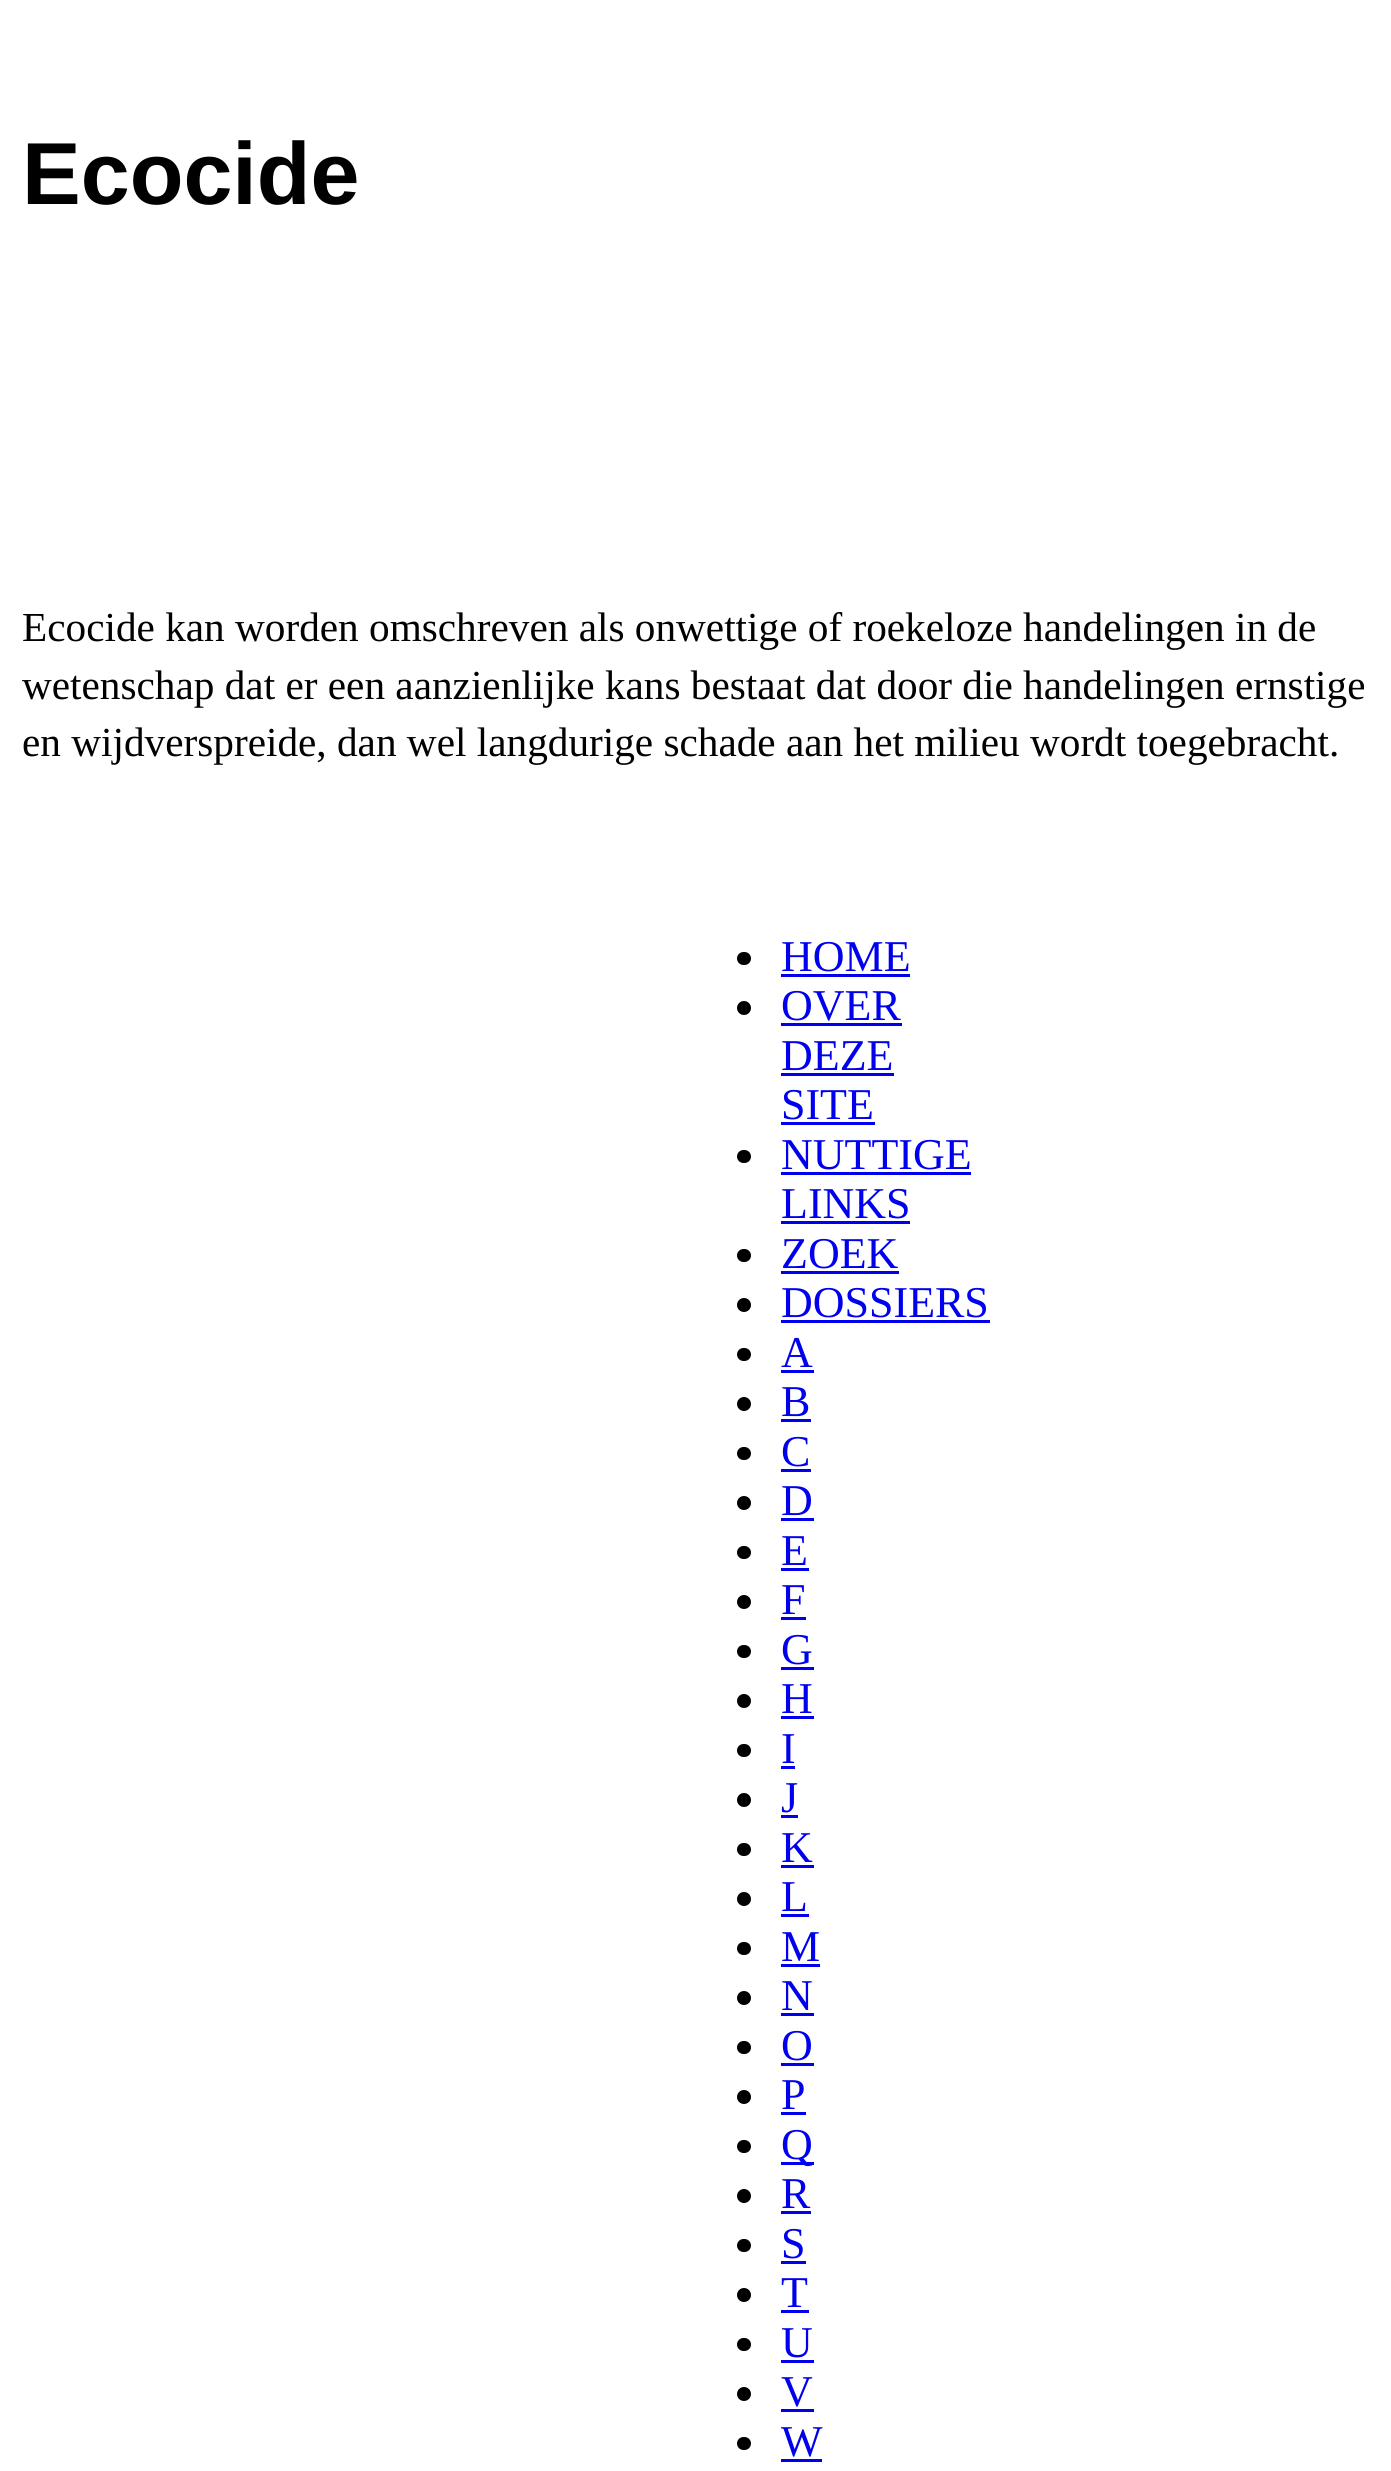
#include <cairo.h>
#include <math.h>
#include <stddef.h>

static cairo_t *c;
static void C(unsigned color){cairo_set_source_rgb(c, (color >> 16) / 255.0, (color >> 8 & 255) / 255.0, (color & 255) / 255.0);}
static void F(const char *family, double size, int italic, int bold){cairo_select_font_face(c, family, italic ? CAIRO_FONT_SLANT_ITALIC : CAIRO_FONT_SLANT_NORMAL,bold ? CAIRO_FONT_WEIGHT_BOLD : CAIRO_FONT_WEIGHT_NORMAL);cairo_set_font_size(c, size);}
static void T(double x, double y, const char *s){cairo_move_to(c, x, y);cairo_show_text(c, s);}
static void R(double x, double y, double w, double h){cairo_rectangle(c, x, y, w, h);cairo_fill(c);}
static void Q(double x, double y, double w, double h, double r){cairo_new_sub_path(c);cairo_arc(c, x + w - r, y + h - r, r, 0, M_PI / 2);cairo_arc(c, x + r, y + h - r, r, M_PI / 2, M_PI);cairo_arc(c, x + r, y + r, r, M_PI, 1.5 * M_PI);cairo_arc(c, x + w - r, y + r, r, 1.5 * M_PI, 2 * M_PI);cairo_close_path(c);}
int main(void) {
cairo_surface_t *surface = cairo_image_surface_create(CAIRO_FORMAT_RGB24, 1391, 2471);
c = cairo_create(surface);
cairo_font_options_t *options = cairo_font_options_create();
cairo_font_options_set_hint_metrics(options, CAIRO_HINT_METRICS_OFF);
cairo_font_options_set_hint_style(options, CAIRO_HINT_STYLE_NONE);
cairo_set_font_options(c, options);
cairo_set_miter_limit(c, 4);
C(0xffffff);
cairo_paint(c);
F("Liberation Sans",88,0,1);
C(0x000000);
T(22,204,"Ecocide");
F("Liberation Serif",41.25,0,0);
T(22,641,"Ecocide kan worden omschreven als onwettige of roekeloze handelingen in de");
T(22,699,"wetenschap dat er een aanzienlijke kans bestaat dat door die handelingen ernstige");
T(22,756,"en wijdverspreide, dan wel langdurige schade aan het milieu wordt toegebracht.");
Q(737,952,14,13,6.5);
cairo_fill(c);
F("Liberation Serif",44,0,0);
C(0x0000ee);
T(781,971,"HOME");
R(781,974,129,3);
C(0x000000);
cairo_new_path(c);
cairo_arc(c,744,1008,7,0,2 * M_PI);
cairo_fill(c);
C(0x0000ee);
T(781,1020,"OVER");
R(781,1023,121,3);
T(781,1070,"DEZE");
R(781,1073,113,3);
T(781,1119,"SITE");
R(781,1122,94,3);
C(0x000000);
Q(737,1150,14,13,6.5);
cairo_fill(c);
C(0x0000ee);
T(781,1169,"NUTTIGE");
R(781,1172,190,3);
T(781,1218,"LINKS");
R(781,1221,129,3);
C(0x000000);
Q(737,1249,14,13,6.5);
cairo_fill(c);
C(0x0000ee);
T(781,1268,"ZOEK");
R(781,1271,118,3);
C(0x000000);
cairo_new_path(c);
cairo_arc(c,744,1305,7,0,2 * M_PI);
cairo_fill(c);
C(0x0000ee);
T(781,1317,"DOSSIERS");
R(781,1320,209,3);
C(0x000000);
Q(737,1348,14,13,6.5);
cairo_fill(c);
C(0x0000ee);
T(781,1367,"A");
R(781,1370,33,3);
C(0x000000);
cairo_new_path(c);
cairo_arc(c,744,1404,7,0,2 * M_PI);
cairo_fill(c);
C(0x0000ee);
T(781,1416,"B");
R(781,1419,30,3);
C(0x000000);
Q(737,1447,14,13,6.5);
cairo_fill(c);
C(0x0000ee);
T(781,1466,"C");
R(781,1469,30,3);
C(0x000000);
cairo_new_path(c);
cairo_arc(c,744,1503,7,0,2 * M_PI);
cairo_fill(c);
C(0x0000ee);
T(781,1515,"D");
R(781,1518,33,3);
C(0x000000);
Q(737,1546,14,13,6.5);
cairo_fill(c);
C(0x0000ee);
T(781,1565,"E");
R(781,1568,28,3);
C(0x000000);
cairo_new_path(c);
cairo_arc(c,744,1602,7,0,2 * M_PI);
cairo_fill(c);
C(0x0000ee);
T(781,1614,"F");
R(781,1617,25,3);
C(0x000000);
Q(737,1645,14,13,6.5);
cairo_fill(c);
C(0x0000ee);
T(781,1664,"G");
R(781,1667,33,3);
C(0x000000);
cairo_new_path(c);
cairo_arc(c,744,1701,7,0,2 * M_PI);
cairo_fill(c);
C(0x0000ee);
T(781,1713,"H");
R(781,1716,33,3);
C(0x000000);
Q(737,1744,14,13,6.5);
cairo_fill(c);
C(0x0000ee);
T(781,1763,"I");
R(781,1766,14,3);
C(0x000000);
cairo_new_path(c);
cairo_arc(c,744,1800,7,0,2 * M_PI);
cairo_fill(c);
C(0x0000ee);
T(781,1812,"J");
R(781,1815,17,3);
C(0x000000);
Q(737,1843,14,13,6.5);
cairo_fill(c);
C(0x0000ee);
T(781,1862,"K");
R(781,1865,33,3);
C(0x000000);
cairo_new_path(c);
cairo_arc(c,744,1899,7,0,2 * M_PI);
cairo_fill(c);
C(0x0000ee);
T(781,1911,"L");
R(781,1914,28,3);
C(0x000000);
Q(737,1942,14,13,6.5);
cairo_fill(c);
C(0x0000ee);
T(781,1961,"M");
R(781,1964,39,3);
C(0x000000);
cairo_new_path(c);
cairo_arc(c,744,1998,7,0,2 * M_PI);
cairo_fill(c);
C(0x0000ee);
T(781,2010,"N");
R(781,2013,33,3);
C(0x000000);
Q(737,2041,14,13,6.5);
cairo_fill(c);
C(0x0000ee);
T(781,2060,"O");
R(781,2063,33,3);
C(0x000000);
cairo_new_path(c);
cairo_arc(c,744,2097,7,0,2 * M_PI);
cairo_fill(c);
C(0x0000ee);
T(781,2109,"P");
R(781,2112,25,3);
C(0x000000);
Q(737,2140,14,13,6.5);
cairo_fill(c);
C(0x0000ee);
R(781,2162,33,3);
T(781,2159,"Q");
C(0x000000);
cairo_new_path(c);
cairo_arc(c,744,2196,7,0,2 * M_PI);
cairo_fill(c);
C(0x0000ee);
T(781,2208,"R");
R(781,2211,30,3);
C(0x000000);
Q(737,2239,14,13,6.5);
cairo_fill(c);
C(0x0000ee);
T(781,2258,"S");
R(781,2261,25,3);
C(0x000000);
cairo_new_path(c);
cairo_arc(c,744,2295,7,0,2 * M_PI);
cairo_fill(c);
C(0x0000ee);
T(781,2307,"T");
R(781,2310,28,3);
C(0x000000);
Q(737,2338,14,13,6.5);
cairo_fill(c);
C(0x0000ee);
T(781,2357,"U");
R(781,2360,33,3);
C(0x000000);
cairo_new_path(c);
cairo_arc(c,744,2394,7,0,2 * M_PI);
cairo_fill(c);
C(0x0000ee);
T(781,2406,"V");
R(781,2409,33,3);
C(0x000000);
Q(737,2437,14,13,6.5);
cairo_fill(c);
C(0x0000ee);
T(781,2456,"W");
R(781,2459,41,3);
cairo_surface_write_to_png(surface, "o.png");
cairo_font_options_destroy(options);
cairo_destroy(c);
cairo_surface_destroy(surface);
return 0;
}
